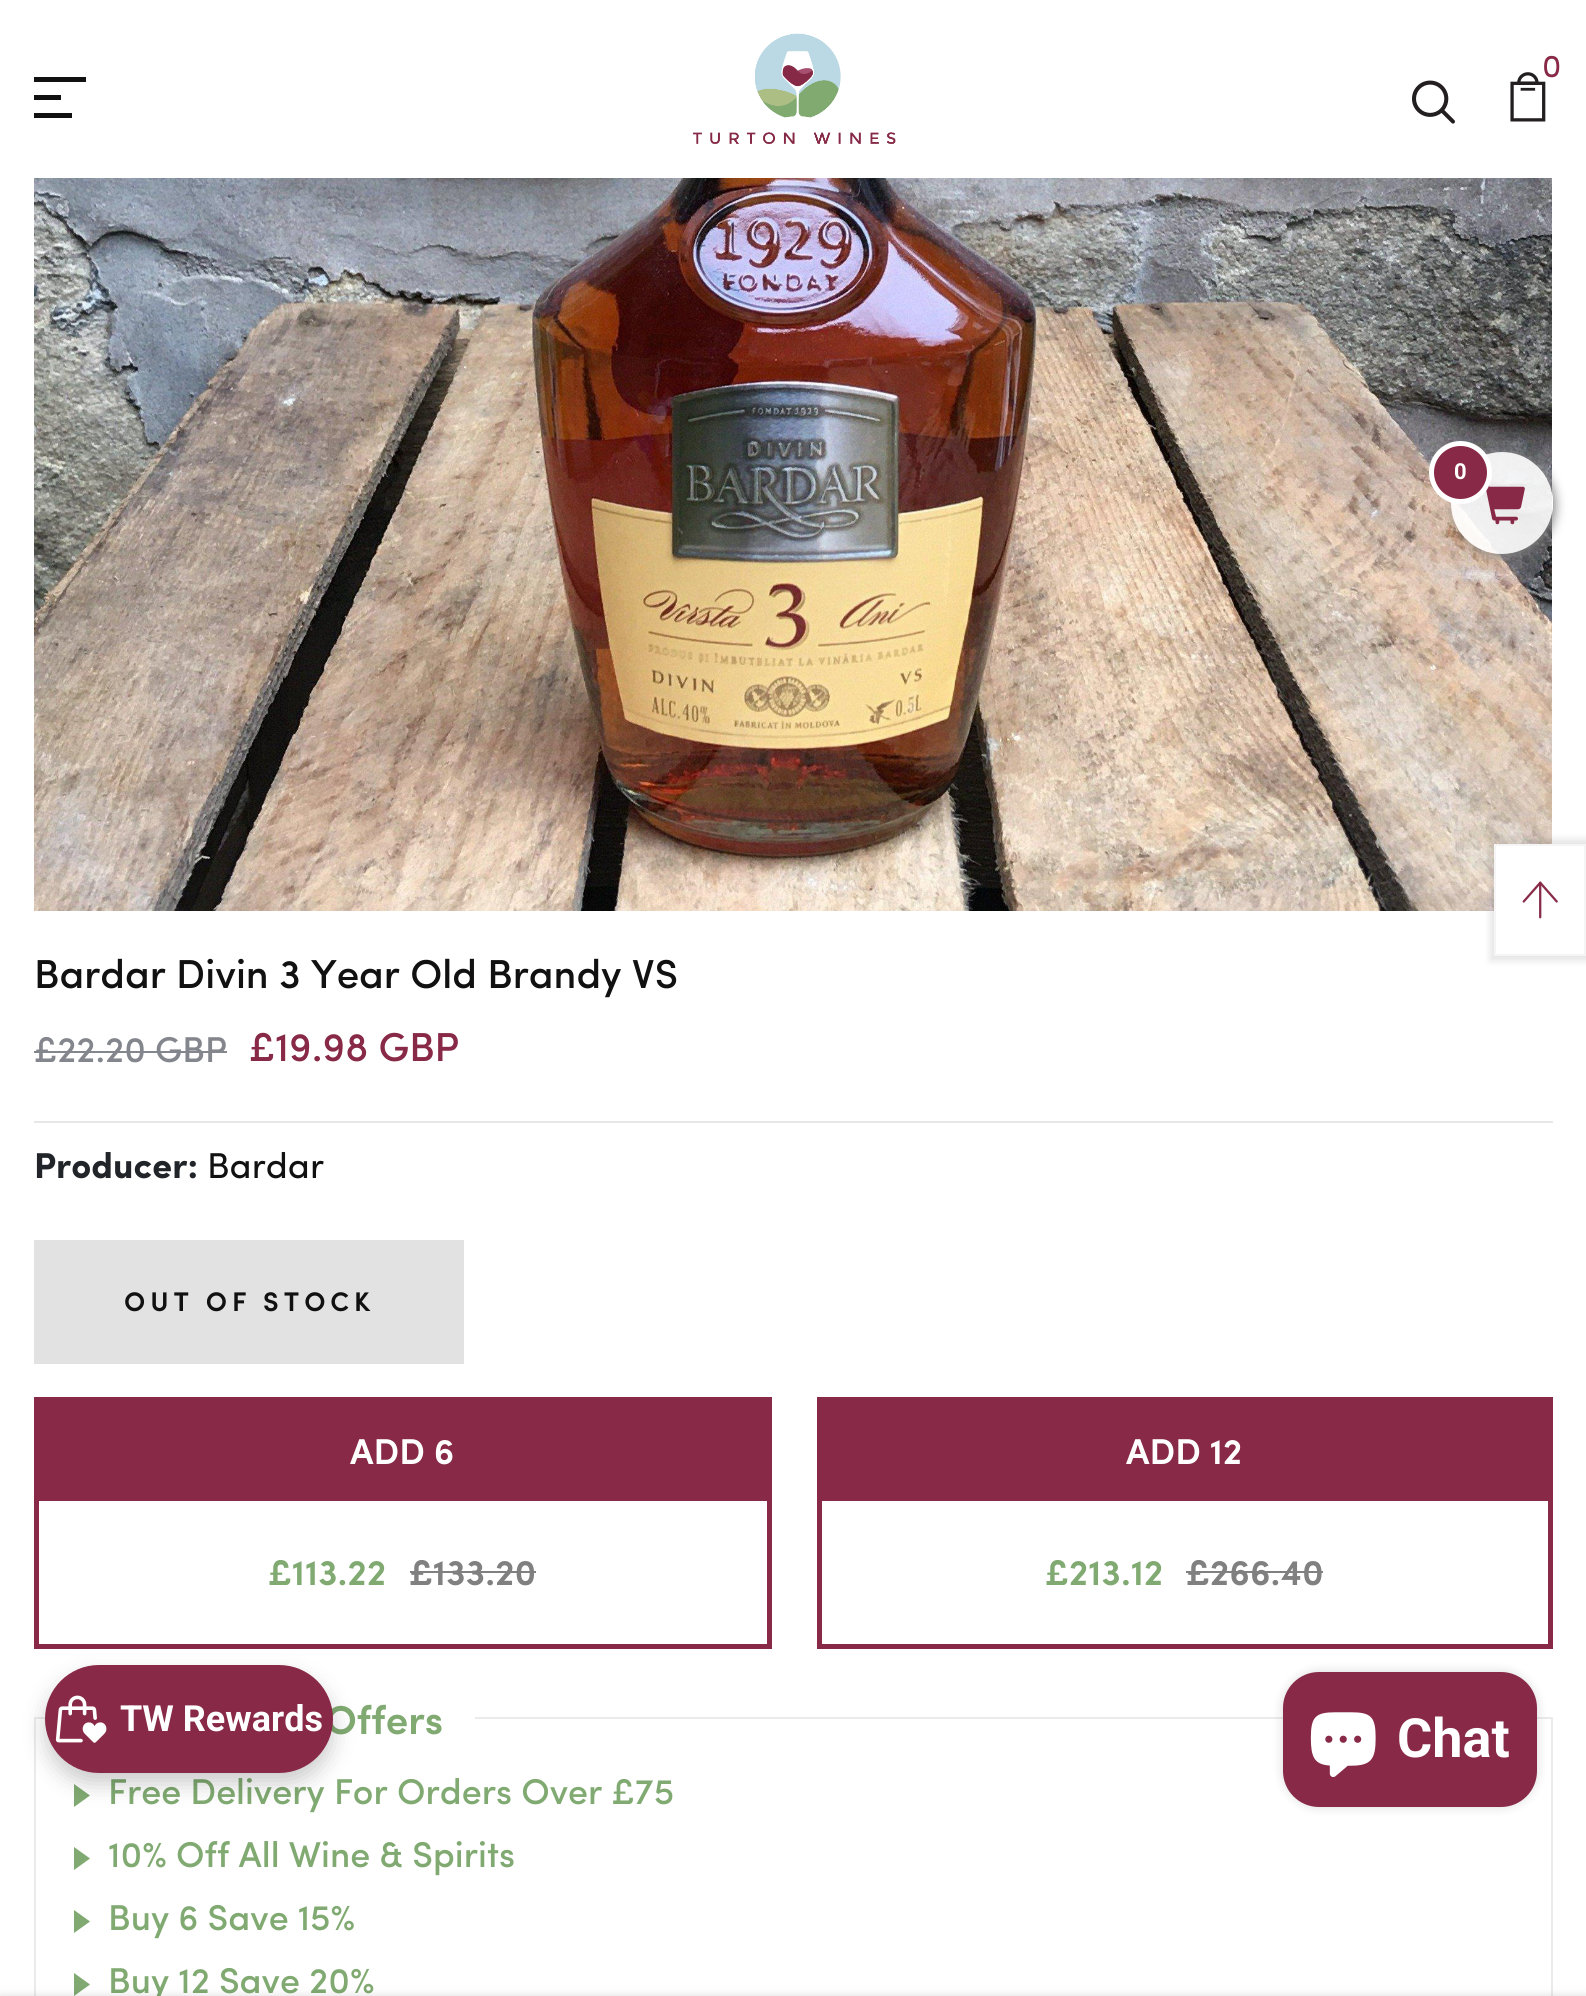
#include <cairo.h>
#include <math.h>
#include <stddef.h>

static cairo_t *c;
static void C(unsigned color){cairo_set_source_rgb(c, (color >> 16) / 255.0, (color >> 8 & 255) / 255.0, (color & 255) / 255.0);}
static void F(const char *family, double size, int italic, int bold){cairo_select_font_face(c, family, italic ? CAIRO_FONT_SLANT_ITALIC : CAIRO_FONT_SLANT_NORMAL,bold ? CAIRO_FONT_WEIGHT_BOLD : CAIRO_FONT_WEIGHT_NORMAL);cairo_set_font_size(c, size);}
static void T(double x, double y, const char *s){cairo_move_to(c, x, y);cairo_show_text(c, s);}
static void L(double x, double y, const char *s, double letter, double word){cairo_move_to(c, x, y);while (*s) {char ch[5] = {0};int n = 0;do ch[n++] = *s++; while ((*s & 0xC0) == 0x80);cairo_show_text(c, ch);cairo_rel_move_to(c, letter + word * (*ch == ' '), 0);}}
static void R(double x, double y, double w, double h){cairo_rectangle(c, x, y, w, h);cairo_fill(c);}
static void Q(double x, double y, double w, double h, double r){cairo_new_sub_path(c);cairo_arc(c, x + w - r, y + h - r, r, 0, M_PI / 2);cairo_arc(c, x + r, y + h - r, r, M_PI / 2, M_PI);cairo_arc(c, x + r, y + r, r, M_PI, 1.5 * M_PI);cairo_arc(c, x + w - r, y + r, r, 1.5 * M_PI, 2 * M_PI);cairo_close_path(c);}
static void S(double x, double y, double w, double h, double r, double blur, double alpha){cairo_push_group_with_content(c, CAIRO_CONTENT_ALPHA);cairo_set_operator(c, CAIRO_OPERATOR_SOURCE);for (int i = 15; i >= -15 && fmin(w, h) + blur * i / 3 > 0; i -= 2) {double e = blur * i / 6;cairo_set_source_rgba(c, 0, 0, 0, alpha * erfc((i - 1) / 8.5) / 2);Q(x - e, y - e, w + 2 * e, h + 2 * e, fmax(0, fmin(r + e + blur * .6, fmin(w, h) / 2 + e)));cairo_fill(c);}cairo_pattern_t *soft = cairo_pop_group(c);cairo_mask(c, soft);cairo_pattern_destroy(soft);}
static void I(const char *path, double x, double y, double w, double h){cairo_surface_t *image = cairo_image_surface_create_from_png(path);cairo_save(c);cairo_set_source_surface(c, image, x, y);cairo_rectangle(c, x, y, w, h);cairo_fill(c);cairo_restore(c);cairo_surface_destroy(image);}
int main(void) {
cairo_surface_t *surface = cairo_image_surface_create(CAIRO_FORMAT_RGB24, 1586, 1996);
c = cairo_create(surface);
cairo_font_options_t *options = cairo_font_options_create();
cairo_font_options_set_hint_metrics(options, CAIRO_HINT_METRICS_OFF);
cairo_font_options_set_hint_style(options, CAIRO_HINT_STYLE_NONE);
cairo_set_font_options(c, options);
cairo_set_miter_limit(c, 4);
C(0xffffff);
cairo_paint(c);
I("1.png",693,33,203,111);
I("2.png",1510,72,36,50);
F("Sofia",32,0,0);
C(0x872947);
T(1542,77,"0");
I("3.png",1412,80,43,44);
C(0x111111);
R(34,77,52,5);
R(34,95,27,5);
R(34,113,38,5);
I("4.png",34,178,1518,733);
F("Sofia Medium",40.5,0,0);
T(34,988,"Bardar Divin 3 Year Old Brandy VS");
F("Sofia Medium",36,0,0);
C(0x83868c);
T(34,1062,"£22.20 GBP");
R(34,1051,193,2);
F("Sofia Medium",40.5,0,0);
C(0x872947);
T(249,1061,"£19.98 GBP");
C(0xe7e7e7);
R(34,1121,1519,2);
F("Sofia",36,0,1);
C(0x212529);
T(34,1178,"Producer:");
F("Sofia",36,0,0);
C(0x111111);
T(207,1178,"Bardar");
C(0xe2e2e2);
R(34,1240,430,124);
F("Sofia SemiBold",27,0,0);
C(0x111111);
L(124,1311,"OUT OF STOCK",5,0);
cairo_rectangle(c,36.5,1399.5,733,247);
C(0x872947);
cairo_set_line_width(c,5);
cairo_stroke(c);
R(39,1402,728,99);
F("Sofia SemiBold",36,0,0);
C(0xffffff);
T(350,1464,"ADD 6");
C(0x80aa71);
T(268,1585,"£113.22");
C(0x808080);
T(409,1585,"£133.20");
R(410,1571,126,2);
cairo_rectangle(c,819.5,1399.5,731,247);
C(0x872947);
cairo_stroke(c);
R(822,1402,726,99);
C(0xffffff);
T(1126,1464,"ADD 12");
C(0x80aa71);
T(1045,1585,"£213.12");
C(0x808080);
T(1186,1585,"£266.40");
R(1186,1571,137,2);
cairo_rectangle(c,35,1718,1517,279);
C(0xebebeb);
cairo_set_line_width(c,2);
cairo_stroke(c);
C(0xffffff);
R(326,1717,149,2);
F("Sofia SemiBold",40.5,0,0);
C(0x80aa71);
T(325,1734,"Offers");
cairo_new_path(c);
cairo_move_to(c,74,1807);
cairo_line_to(c,74,1784);
cairo_line_to(c,90,1795.5);
cairo_close_path(c);
cairo_fill(c);
F("Sofia Medium",36,0,0);
T(108,1804,"Free Delivery For Orders Over £75");
cairo_new_path(c);
cairo_move_to(c,74,1870);
cairo_line_to(c,74,1847);
cairo_line_to(c,90,1858.5);
cairo_close_path(c);
cairo_fill(c);
T(108,1867,"10% Off All Wine & Spirits");
cairo_new_path(c);
cairo_move_to(c,74,1933);
cairo_line_to(c,74,1910);
cairo_line_to(c,90,1921.5);
cairo_close_path(c);
cairo_fill(c);
T(108,1930,"Buy 6 Save 15%");
cairo_new_path(c);
cairo_move_to(c,74,1996);
cairo_line_to(c,74,1973);
cairo_line_to(c,90,1984.5);
cairo_close_path(c);
cairo_fill(c);
T(108,1993,"Buy 12 Save 20%");
C(0x000000);
S(0,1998,1586,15,0,5.5,.2);
cairo_save(c);
cairo_set_fill_rule(c,CAIRO_FILL_RULE_EVEN_ODD);
cairo_new_path(c);
cairo_move_to(c,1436,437);
cairo_line_to(c,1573,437);
cairo_line_to(c,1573,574);
cairo_line_to(c,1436,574);
cairo_close_path(c);
cairo_move_to(c,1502,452);
cairo_curve_to(c,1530,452,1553,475,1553,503);
cairo_curve_to(c,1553,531,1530,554,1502,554);
cairo_curve_to(c,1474,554,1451,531,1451,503);
cairo_curve_to(c,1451,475,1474,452,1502,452);
cairo_close_path(c);
cairo_clip(c);
C(0x808080);
S(1454,455,101,101,50.5,5.5,1);
cairo_restore(c);
cairo_set_source_rgba(c,1,1,1,0.9);
cairo_arc(c,1502,503,51,0,2 * M_PI);
cairo_fill(c);
I("5.png",1486,485,39,40);
C(0x882947);
cairo_arc(c,1460.5,472.5,29,0,2 * M_PI);
cairo_fill_preserve(c);
C(0xffffff);
cairo_set_line_width(c,5);
cairo_stroke(c);
F("Roboto",22,0,1);
T(1454,479,"0");
C(0x000000);
S(1490,839,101,122,0,3.5,.1);
C(0xffffff);
cairo_rectangle(c,1495,845,90,110);
cairo_fill_preserve(c);
C(0xf5f5f6);
cairo_set_line_width(c,2);
cairo_stroke(c);
I("6.png",1522,881,36,38);
C(0x000000);
S(45,1676,288,108,54,11,.2);
C(0x882947);
Q(45,1665,288,108,54);
cairo_fill(c);
I("7.png",55,1695,52,48);
F("Roboto",36,0,1);
C(0xffffff);
T(120,1731,"TW Rewards");
C(0x000000);
S(1283,1672,254,135,36,5.5,.15);
C(0x872947);
Q(1283,1672,254,135,36);
cairo_fill(c);
I("8.png",1310,1712,66,65);
F("Roboto",54,0,1);
C(0xffffff);
T(1397,1757,"Chat");
cairo_surface_write_to_png(surface, "o.png");
cairo_font_options_destroy(options);
cairo_destroy(c);
cairo_surface_destroy(surface);
return 0;
}
